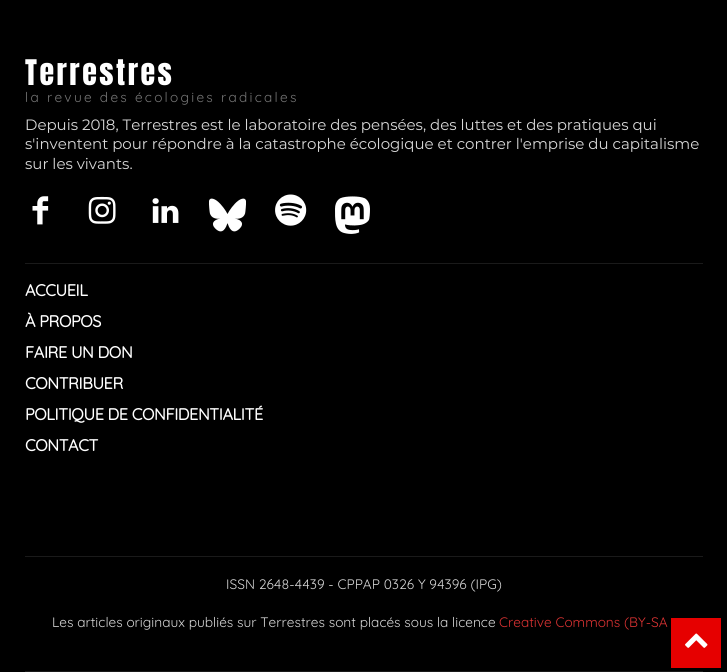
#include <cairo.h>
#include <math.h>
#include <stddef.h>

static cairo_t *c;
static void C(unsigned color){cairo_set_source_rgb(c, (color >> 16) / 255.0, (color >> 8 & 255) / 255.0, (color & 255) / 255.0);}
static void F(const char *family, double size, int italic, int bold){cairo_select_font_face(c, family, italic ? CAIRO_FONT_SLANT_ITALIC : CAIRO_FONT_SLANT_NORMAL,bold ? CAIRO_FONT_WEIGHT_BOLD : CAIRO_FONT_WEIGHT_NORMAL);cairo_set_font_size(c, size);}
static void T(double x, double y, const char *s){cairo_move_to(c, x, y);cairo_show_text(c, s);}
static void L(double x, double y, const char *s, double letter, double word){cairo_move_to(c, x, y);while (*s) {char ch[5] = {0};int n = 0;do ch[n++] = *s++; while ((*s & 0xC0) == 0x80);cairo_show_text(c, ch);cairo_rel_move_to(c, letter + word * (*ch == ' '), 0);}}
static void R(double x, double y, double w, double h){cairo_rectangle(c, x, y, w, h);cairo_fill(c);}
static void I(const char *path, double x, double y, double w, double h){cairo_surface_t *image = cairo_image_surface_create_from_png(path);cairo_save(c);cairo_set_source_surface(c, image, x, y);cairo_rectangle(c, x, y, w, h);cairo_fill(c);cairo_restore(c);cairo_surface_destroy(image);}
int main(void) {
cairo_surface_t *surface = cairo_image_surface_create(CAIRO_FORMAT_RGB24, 727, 672);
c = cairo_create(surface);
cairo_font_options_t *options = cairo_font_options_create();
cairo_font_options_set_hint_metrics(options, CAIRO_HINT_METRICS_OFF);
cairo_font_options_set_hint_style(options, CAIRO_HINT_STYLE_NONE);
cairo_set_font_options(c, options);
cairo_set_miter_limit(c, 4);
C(0x000000);
cairo_paint(c);
C(0x1a1a1a);
R(25,556,678,1);
R(25,263,678,1);
F("Anton",30,0,0);
C(0xffffff);
L(25,85,"Terrestres",2.5,0);
F("Quicksand",13.75,0,0);
C(0x767676);
L(25,102,"la revue des écologies radicales",2.25,0);
F("Montserrat Thin",15,0,0);
C(0xd8d8d8);
T(25,130,"Depuis 2018, Terrestres est le laboratoire des pensées, des luttes et des pratiques qui");
T(25,149,"s'inventent pour répondre à la catastrophe écologique et contrer l'emprise du capitalisme");
T(25,169,"sur les vivants.");
I("1.png",32,196,17,29);
I("2.png",88,196,28,28);
I("3.png",152,198,27,25);
I("4.png",209,198,37,34);
I("5.png",275,194,32,32);
I("6.png",335,196,35,38);
F("Quicksand",16.25,0,1);
C(0xffffff);
L(25,296,"ACCUEIL",-.4,0);
L(25,327,"À PROPOS",-.4,0);
L(25,358,"FAIRE UN DON",-.4,0);
L(25,389,"CONTRIBUER",-.4,0);
L(25,420,"POLITIQUE DE CONFIDENTIALITÉ",-.4,0);
L(25,451,"CONTACT",-.4,0);
C(0x1a1a1a);
R(25,671,678,1);
F("Quicksand",13.75,0,0);
C(0xd8d8d8);
T(226,589,"ISSN 2648-4439 - CPPAP 0326 Y 94396 (IPG)");
T(52,627,"Les articles originaux publiés sur Terrestres sont placés sous la licence");
C(0xdd3333);
T(499,627,"Creative Commons (BY-SA");
C(0xe60000);
R(671,618,50,50);
I("7.png",685,633,23,15);
cairo_surface_write_to_png(surface, "o.png");
cairo_font_options_destroy(options);
cairo_destroy(c);
cairo_surface_destroy(surface);
return 0;
}
